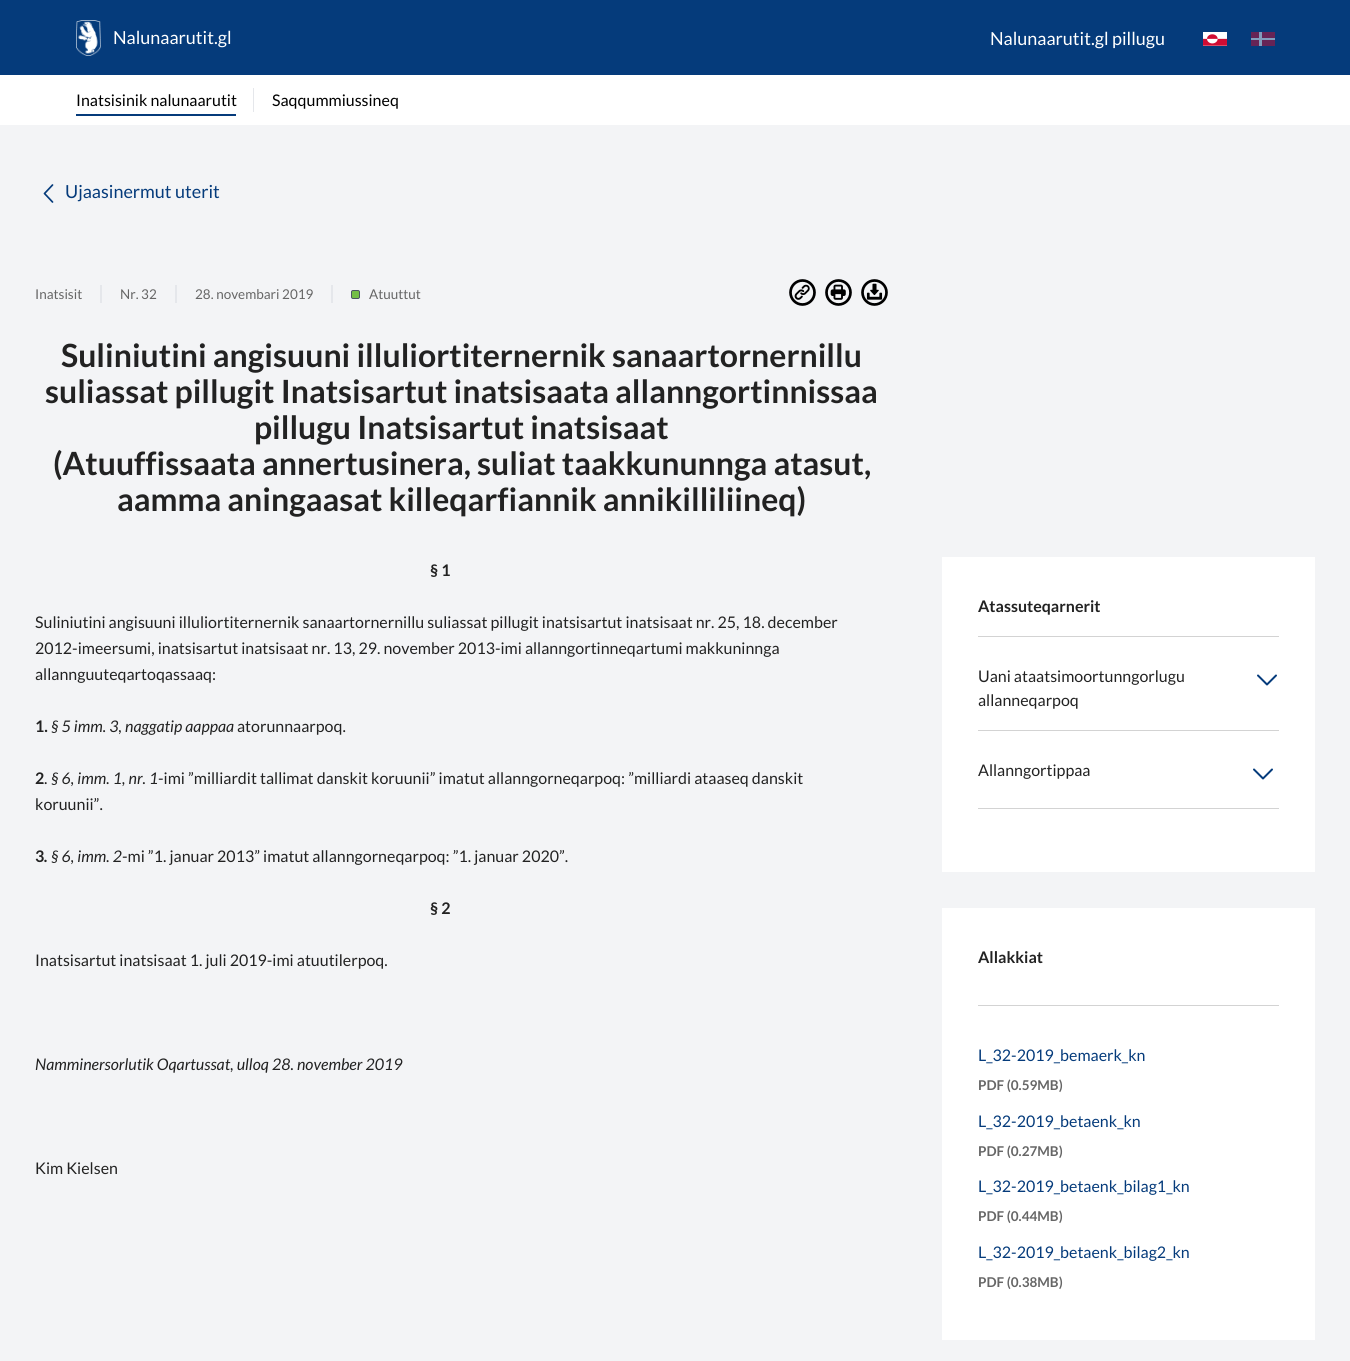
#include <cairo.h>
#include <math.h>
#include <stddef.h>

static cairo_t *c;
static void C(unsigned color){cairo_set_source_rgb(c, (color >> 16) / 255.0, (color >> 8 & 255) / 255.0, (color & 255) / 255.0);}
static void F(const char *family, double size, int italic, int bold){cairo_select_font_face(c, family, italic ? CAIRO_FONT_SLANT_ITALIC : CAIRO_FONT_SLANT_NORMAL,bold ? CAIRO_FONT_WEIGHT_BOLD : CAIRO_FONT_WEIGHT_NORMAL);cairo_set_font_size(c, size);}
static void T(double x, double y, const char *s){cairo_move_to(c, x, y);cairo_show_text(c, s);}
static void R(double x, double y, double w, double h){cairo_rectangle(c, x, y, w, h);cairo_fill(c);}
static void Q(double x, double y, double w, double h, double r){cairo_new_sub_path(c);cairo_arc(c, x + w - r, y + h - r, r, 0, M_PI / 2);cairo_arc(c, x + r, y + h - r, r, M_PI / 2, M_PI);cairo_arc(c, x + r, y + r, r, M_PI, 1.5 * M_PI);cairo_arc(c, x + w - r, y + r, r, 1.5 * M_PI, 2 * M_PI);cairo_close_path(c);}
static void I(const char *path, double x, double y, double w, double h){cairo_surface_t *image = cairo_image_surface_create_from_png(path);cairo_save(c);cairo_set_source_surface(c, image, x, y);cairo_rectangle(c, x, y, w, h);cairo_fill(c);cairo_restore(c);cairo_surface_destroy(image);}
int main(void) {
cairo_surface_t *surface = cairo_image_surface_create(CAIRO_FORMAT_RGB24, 1350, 1361);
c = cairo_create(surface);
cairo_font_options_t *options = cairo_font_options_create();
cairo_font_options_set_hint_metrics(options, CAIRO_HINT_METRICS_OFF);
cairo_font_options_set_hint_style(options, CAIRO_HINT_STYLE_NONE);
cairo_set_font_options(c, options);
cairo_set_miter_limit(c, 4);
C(0x053b7b);
cairo_paint(c);
I("1.png",76,20,25,36);
F("Lato",18,0,0);
C(0xffffff);
T(113,44,"Nalunaarutit.gl");
T(990,45,"Nalunaarutit.gl pillugu");
I("2.png",1203,32,24,14);
C(0x662456);
R(1251,32,24,14);
C(0x829dbd);
R(1259,32,3,14);
R(1251,38,24,2);
C(0xffffff);
R(0,75,1350,50);
F("Lato",16,0,0);
C(0x000000);
T(76,106,"Inatsisinik nalunaarutit");
C(0x053b7b);
R(76,114,160,2);
C(0xe5e7eb);
R(253,88,1,24);
C(0x000000);
T(272,106,"Saqqummiussineq");
C(0xf3f4f6);
R(0,125,1350,1236);
cairo_new_path(c);
cairo_move_to(c,52.5,202);
cairo_line_to(c,44.5,193.5);
cairo_line_to(c,52.5,185);
C(0x053b7b);
cairo_set_line_width(c,1.7);
cairo_set_line_cap(c,CAIRO_LINE_CAP_ROUND);
cairo_set_line_join(c,CAIRO_LINE_JOIN_ROUND);
cairo_stroke(c);
F("Lato",18,0,0);
T(65,198,"Ujaasinermut uterit");
F("Lato",13.5,0,0);
C(0x666666);
T(35,299,"Inatsisit");
C(0xe5e7eb);
R(100,285,2,18);
C(0x666666);
T(120,299,"Nr. 32");
C(0xe5e7eb);
R(175,285,2,18);
C(0x666666);
T(195,299,"28. novembari 2019");
C(0xe5e7eb);
R(331,285,2,18);
C(0x73be46);
Q(351.5,290.5,8,8,1.5);
cairo_fill_preserve(c);
C(0x4b5563);
cairo_set_line_width(c,1);
cairo_set_line_cap(c,CAIRO_LINE_CAP_BUTT);
cairo_set_line_join(c,CAIRO_LINE_JOIN_MITER);
cairo_stroke(c);
C(0x666666);
T(369,299,"Atuuttut");
I("3.png",789,279,27,27);
I("4.png",825,279,27,27);
I("5.png",861,279,27,27);
F("Lato",32,0,1);
C(0x222222);
T(61,367,"Suliniutini angisuuni illuliortiternernik sanaartornernillu");
T(45,403,"suliassat pillugit Inatsisartut inatsisaata allanngortinnissaa");
T(254,439,"pillugu Inatsisartut inatsisaat");
T(53,475,"(Atuuffissaata annertusinera, suliat taakkununnga atasut,");
T(117,511,"aamma aningaasat killeqarfiannik annikilliliineq)");
F("Lato",16,0,1);
T(430,576,"§ 1");
F("Lato",16,0,0);
T(35,628,"Suliniutini angisuuni illuliortiternernik sanaartornernillu suliassat pillugit inatsisartut inatsisaat nr. 25, 18. december");
T(35,654,"2012-imeersumi, inatsisartut inatsisaat nr. 13, 29. november 2013-imi allanngortinneqartumi makkuninnga");
T(35,680,"allannguuteqartoqassaaq:");
F("Lato",16,0,1);
T(35,732,"1.");
F("Lato",16,1,0);
T(51,732,"§ 5 imm. 3, naggatip aappaa");
F("Lato",16,0,0);
T(237,732,"atorunnaarpoq.");
F("Lato",16,0,1);
T(35,784,"2");
F("Lato",16,0,0);
T(44,784,".");
F("Lato",16,1,0);
T(51,784,"§ 6, imm. 1, nr. 1");
F("Lato",16,0,0);
T(158,784,"-imi ”milliardit tallimat danskit koruunii” imatut allanngorneqarpoq: ”milliardi ataaseq danskit");
T(35,810,"koruunii”.");
F("Lato",16,0,1);
T(35,862,"3");
F("Lato",16,1,1);
T(44,862,".");
F("Lato",16,1,0);
T(51,862,"§ 6, imm. 2");
F("Lato",16,0,0);
T(122,862,"-mi ”1. januar 2013” imatut allanngorneqarpoq: ”1. januar 2020”.");
F("Lato",16,0,1);
T(430,914,"§ 2");
F("Lato",16,0,0);
T(35,966,"Inatsisartut inatsisaat 1. juli 2019-imi atuutilerpoq.");
F("Lato",16,1,0);
T(35,1070,"Namminersorlutik Oqartussat, ulloq 28. november 2019");
F("Lato",16,0,0);
T(35,1174,"Kim Kielsen");
C(0xffffff);
R(942,557,373,315);
F("Lato",16,0,1);
C(0x222222);
T(978,612,"Atassuteqarnerit");
C(0xd3d3d3);
R(978,636,301,1);
F("Lato",16,0,0);
C(0x222222);
T(978,682,"Uani ataatsimoortunngorlugu");
cairo_new_path(c);
cairo_move_to(c,1267,684.5);
cairo_line_to(c,1258,675.5);
cairo_move_to(c,1276,675.5);
cairo_line_to(c,1267,684.5);
C(0x053b7b);
cairo_set_line_width(c,2);
cairo_set_line_cap(c,CAIRO_LINE_CAP_ROUND);
cairo_set_line_join(c,CAIRO_LINE_JOIN_ROUND);
cairo_stroke(c);
C(0x222222);
T(978,706,"allanneqarpoq");
C(0xd3d3d3);
R(978,730,301,1);
C(0x222222);
T(978,776,"Allanngortippaa");
cairo_new_path(c);
cairo_move_to(c,1263,778.5);
cairo_line_to(c,1254,769.5);
cairo_move_to(c,1272,769.5);
cairo_line_to(c,1263,778.5);
C(0x053b7b);
cairo_stroke(c);
C(0xd3d3d3);
R(978,808,301,1);
C(0xffffff);
R(942,908,373,432);
F("Lato",16,0,1);
C(0x222222);
T(978,963,"Allakkiat");
C(0xd3d3d3);
R(978,1005,301,1);
F("Lato",16,0,0);
C(0x053b7b);
T(978,1061,"L_32-2019_bemaerk_kn");
F("Lato",13.5,0,1);
C(0x666666);
T(978,1090,"PDF (0.59MB)");
F("Lato",16,0,0);
C(0x053b7b);
T(978,1127,"L_32-2019_betaenk_kn");
F("Lato",13.5,0,1);
C(0x666666);
T(978,1156,"PDF (0.27MB)");
F("Lato",16,0,0);
C(0x053b7b);
T(978,1192,"L_32-2019_betaenk_bilag1_kn");
F("Lato",13.5,0,1);
C(0x666666);
T(978,1221,"PDF (0.44MB)");
F("Lato",16,0,0);
C(0x053b7b);
T(978,1258,"L_32-2019_betaenk_bilag2_kn");
F("Lato",13.5,0,1);
C(0x666666);
T(978,1287,"PDF (0.38MB)");
cairo_surface_write_to_png(surface, "o.png");
cairo_font_options_destroy(options);
cairo_destroy(c);
cairo_surface_destroy(surface);
return 0;
}
